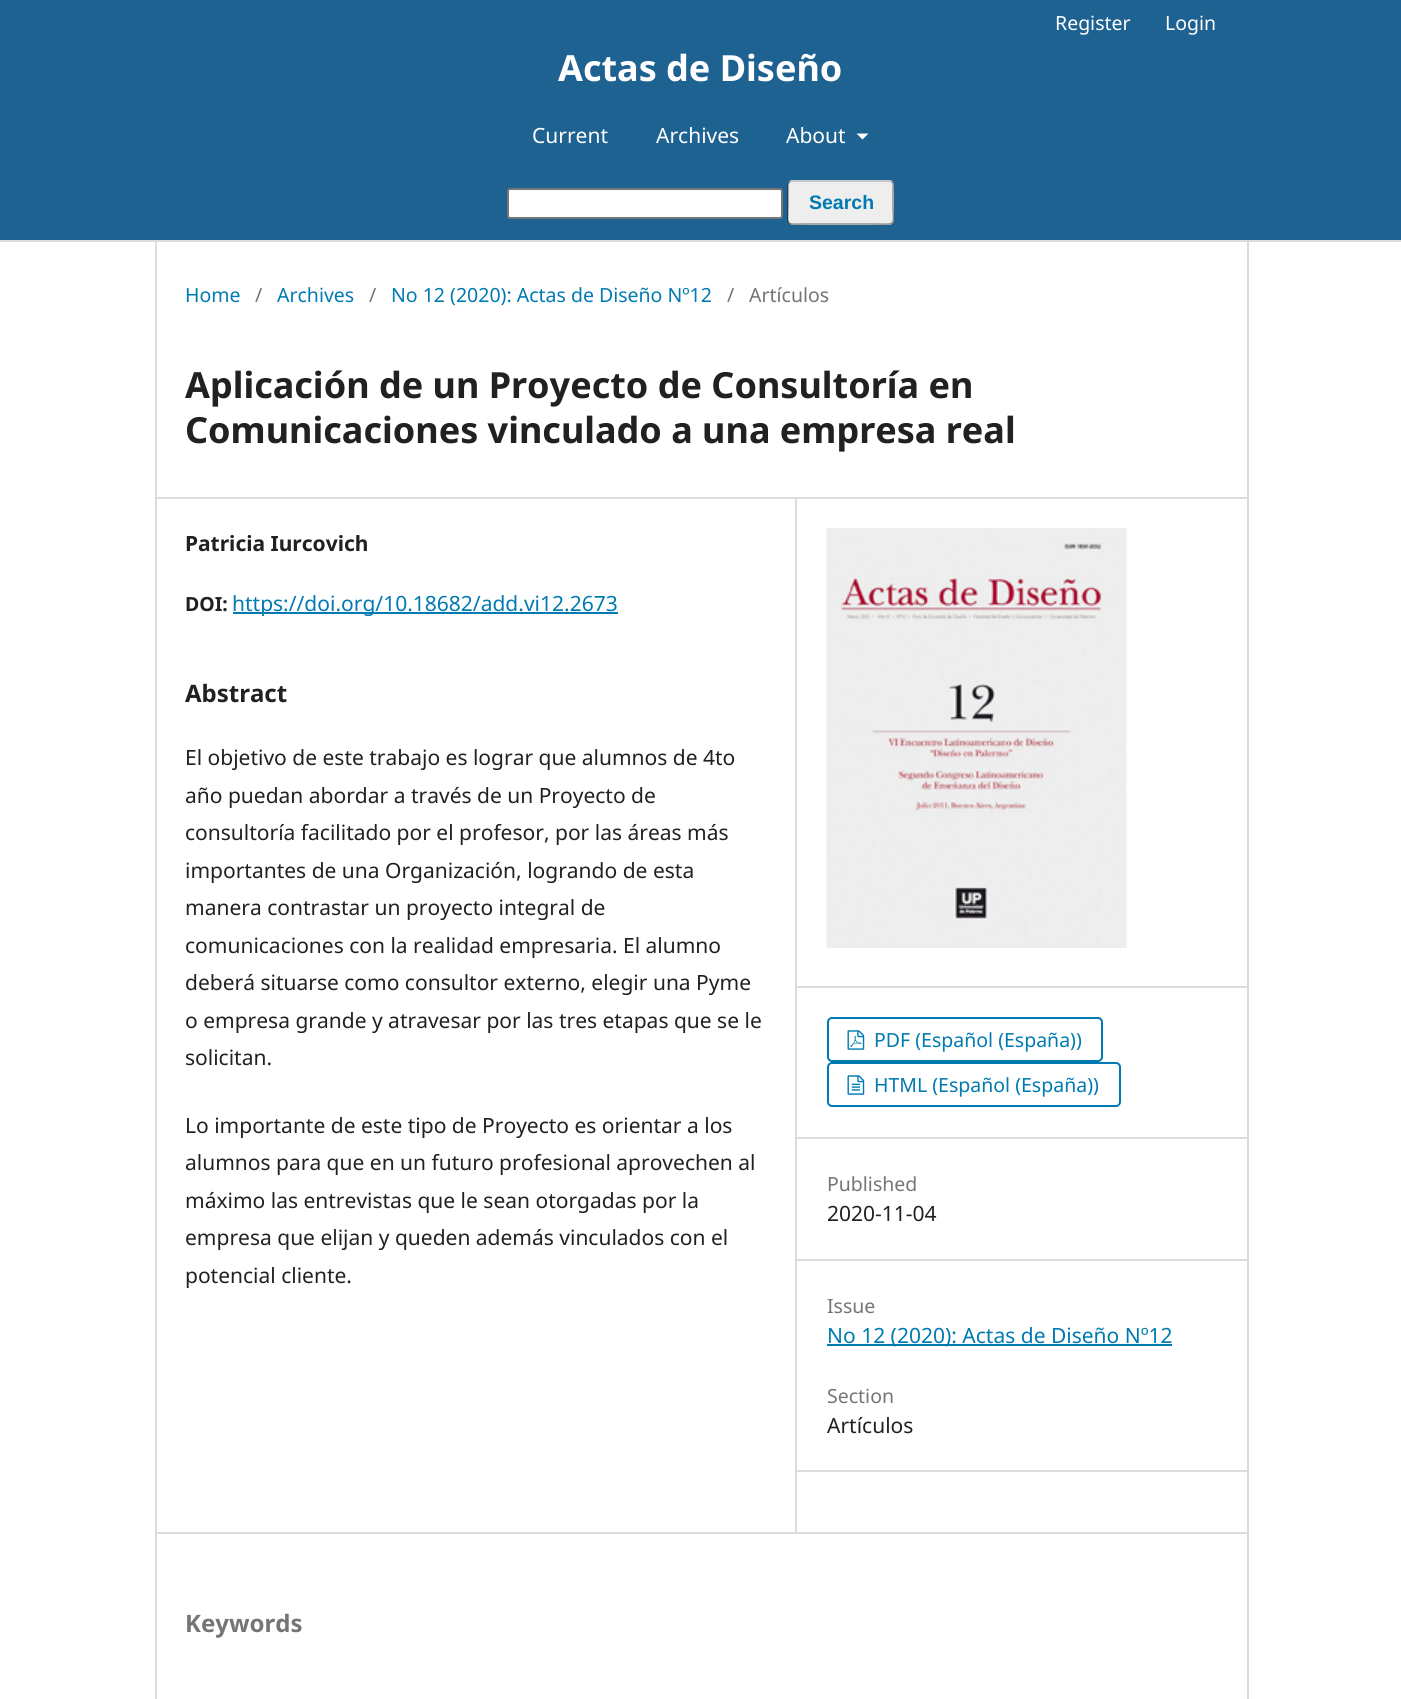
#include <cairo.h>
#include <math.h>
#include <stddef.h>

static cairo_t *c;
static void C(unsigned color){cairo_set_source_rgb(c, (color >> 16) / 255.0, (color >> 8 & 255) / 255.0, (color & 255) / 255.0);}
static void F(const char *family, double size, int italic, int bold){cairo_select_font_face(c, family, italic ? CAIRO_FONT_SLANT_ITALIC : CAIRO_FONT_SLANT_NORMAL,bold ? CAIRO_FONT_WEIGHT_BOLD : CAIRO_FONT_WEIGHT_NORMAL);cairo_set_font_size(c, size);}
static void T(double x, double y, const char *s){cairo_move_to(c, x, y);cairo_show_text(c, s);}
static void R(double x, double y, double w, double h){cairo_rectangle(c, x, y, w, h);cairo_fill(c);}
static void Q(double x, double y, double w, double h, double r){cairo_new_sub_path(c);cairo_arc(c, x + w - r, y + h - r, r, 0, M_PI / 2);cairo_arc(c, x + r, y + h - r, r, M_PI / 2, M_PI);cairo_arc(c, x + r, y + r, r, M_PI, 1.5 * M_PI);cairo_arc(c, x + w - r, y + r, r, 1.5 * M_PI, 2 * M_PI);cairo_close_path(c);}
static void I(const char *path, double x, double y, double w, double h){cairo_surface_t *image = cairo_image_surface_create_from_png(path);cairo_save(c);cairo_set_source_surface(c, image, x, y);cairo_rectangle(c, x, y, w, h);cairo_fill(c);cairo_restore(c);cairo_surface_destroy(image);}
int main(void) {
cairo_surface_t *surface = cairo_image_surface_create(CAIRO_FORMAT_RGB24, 1401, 1699);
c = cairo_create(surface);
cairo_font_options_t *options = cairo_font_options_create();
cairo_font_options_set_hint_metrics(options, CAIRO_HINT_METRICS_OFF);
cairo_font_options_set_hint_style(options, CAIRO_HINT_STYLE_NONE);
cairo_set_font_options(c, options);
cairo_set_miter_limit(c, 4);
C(0xffffff);
cairo_paint(c);
C(0x1e6292);
R(0,0,1401,240);
C(0xdddddd);
R(0,240,1401,2);
F("Noto Sans",19.5,0,0);
C(0xffffff);
T(1055,30,"Register");
T(1165,30,"Login");
F("Noto Sans",36,0,1);
T(558,81,"Actas de Diseño");
F("Noto Sans",21,0,0);
T(532,143,"Current");
T(656,143,"Archives");
T(786,143,"About");
cairo_new_path(c);
cairo_move_to(c,856.5,133.5);
cairo_line_to(c,868.5,133.5);
cairo_line_to(c,862.5,139.5);
cairo_close_path(c);
cairo_fill(c);
Q(508,189,274,29,2);
cairo_fill_preserve(c);
C(0x767676);
cairo_stroke(c);
C(0xeeeeee);
Q(788,180,106,45,5);
cairo_fill(c);
cairo_new_path(c);
cairo_move_to(c,789.5,182);
cairo_line_to(c,792,181);
cairo_line_to(c,890,181);
cairo_line_to(c,892,182);
C(0xbbbbbb);
cairo_set_line_width(c,1.5);
cairo_stroke(c);
cairo_new_path(c);
cairo_move_to(c,892,182);
cairo_curve_to(c,894,184,893,188.5,893,190.5);
cairo_line_to(c,893,202.5);
cairo_curve_to(c,893,227.5,898,224,873,224);
cairo_line_to(c,808,224);
cairo_curve_to(c,783.5,224,788,227.5,788,202.5);
cairo_line_to(c,788,190.5);
cairo_curve_to(c,788,188.5,787.5,184,789.5,182);
cairo_set_source_rgba(c,0,0,0,0.4);
cairo_stroke(c);
F("Liberation Sans",19.5,0,1);
C(0x007ab2);
T(809,209,"Search");
C(0xdddddd);
R(155,497,1092,2);
R(155,1532,1092,2);
R(155,242,2,1457);
F("Noto Sans",19.5,0,0);
C(0x007ab2);
T(185,302,"Home");
C(0x757575);
T(255,302,"/");
C(0x007ab2);
T(277,302,"Archives");
C(0x757575);
T(369,302,"/");
C(0x007ab2);
T(391,302,"No 12 (2020): Actas de Diseño Nº12");
C(0x757575);
T(727,302,"/");
T(749,302,"Artículos");
F("Noto Sans",36,0,1);
C(0x212121);
T(185,398,"Aplicación de un Proyecto de Consultoría en");
T(185,443,"Comunicaciones vinculado a una empresa real");
F("Noto Sans",21,0,1);
T(185,551,"Patricia Iurcovich");
F("Noto Sans",19.5,0,1);
T(185,611,"DOI:");
C(0x007ab2);
R(233,612,385,2);
F("Noto Sans",21,0,0);
T(232,611,"https://doi.org/10.18682/add.vi12.2673");
F("Noto Sans",24,0,1);
C(0x212121);
T(185,702,"Abstract");
F("Noto Sans",21,0,0);
T(185,765,"El objetivo de este trabajo es lograr que alumnos de 4to");
T(185,803,"año puedan abordar a través de un Proyecto de");
T(185,840,"consultoría facilitado por el profesor, por las áreas más");
T(185,878,"importantes de una Organización, logrando de esta");
T(185,915,"manera contrastar un proyecto integral de");
T(185,953,"comunicaciones con la realidad empresaria. El alumno");
T(185,990,"deberá situarse como consultor externo, elegir una Pyme");
T(185,1028,"o empresa grande y atravesar por las tres etapas que se le");
T(185,1065,"solicitan.");
T(185,1133,"Lo importante de este tipo de Proyecto es orientar a los");
T(185,1170,"alumnos para que en un futuro profesional aprovechen al");
T(185,1208,"máximo las entrevistas que le sean otorgadas por la");
T(185,1245,"empresa que elijan y queden además vinculados con el");
T(185,1283,"potencial cliente.");
C(0xdddddd);
R(795,498,2,1034);
R(797,986,450,2);
I("1.png",826,528,301,420);
R(797,1137,450,2);
Q(828,1018,274,43,4);
C(0x007ab2);
cairo_set_line_width(c,2);
cairo_stroke(c);
I("2.png",847,1030,18,20);
F("Noto Sans",19.5,0,0);
T(874,1047,"PDF (Español (España))");
Q(828,1063,292,43,4);
cairo_stroke(c);
I("3.png",847,1075,18,20);
T(874,1092,"HTML (Español (España))");
C(0xdddddd);
R(797,1259,450,2);
C(0x757575);
T(827,1191,"Published");
F("Noto Sans",21,0,0);
C(0x212121);
T(827,1221,"2020-11-04");
C(0xdddddd);
R(797,1470,450,2);
F("Noto Sans",19.5,0,0);
C(0x757575);
T(827,1313,"Issue");
C(0x007ab2);
R(827,1344,345,2);
F("Noto Sans",21,0,0);
T(827,1343,"No 12 (2020): Actas de Diseño Nº12");
F("Noto Sans",19.5,0,0);
C(0x757575);
T(827,1403,"Section");
F("Noto Sans",21,0,0);
C(0x212121);
T(827,1433,"Artículos");
C(0xdddddd);
R(1247,242,2,1457);
F("Noto Sans",24,0,1);
C(0x757575);
T(185,1632,"Keywords");
cairo_surface_write_to_png(surface, "o.png");
cairo_font_options_destroy(options);
cairo_destroy(c);
cairo_surface_destroy(surface);
return 0;
}
